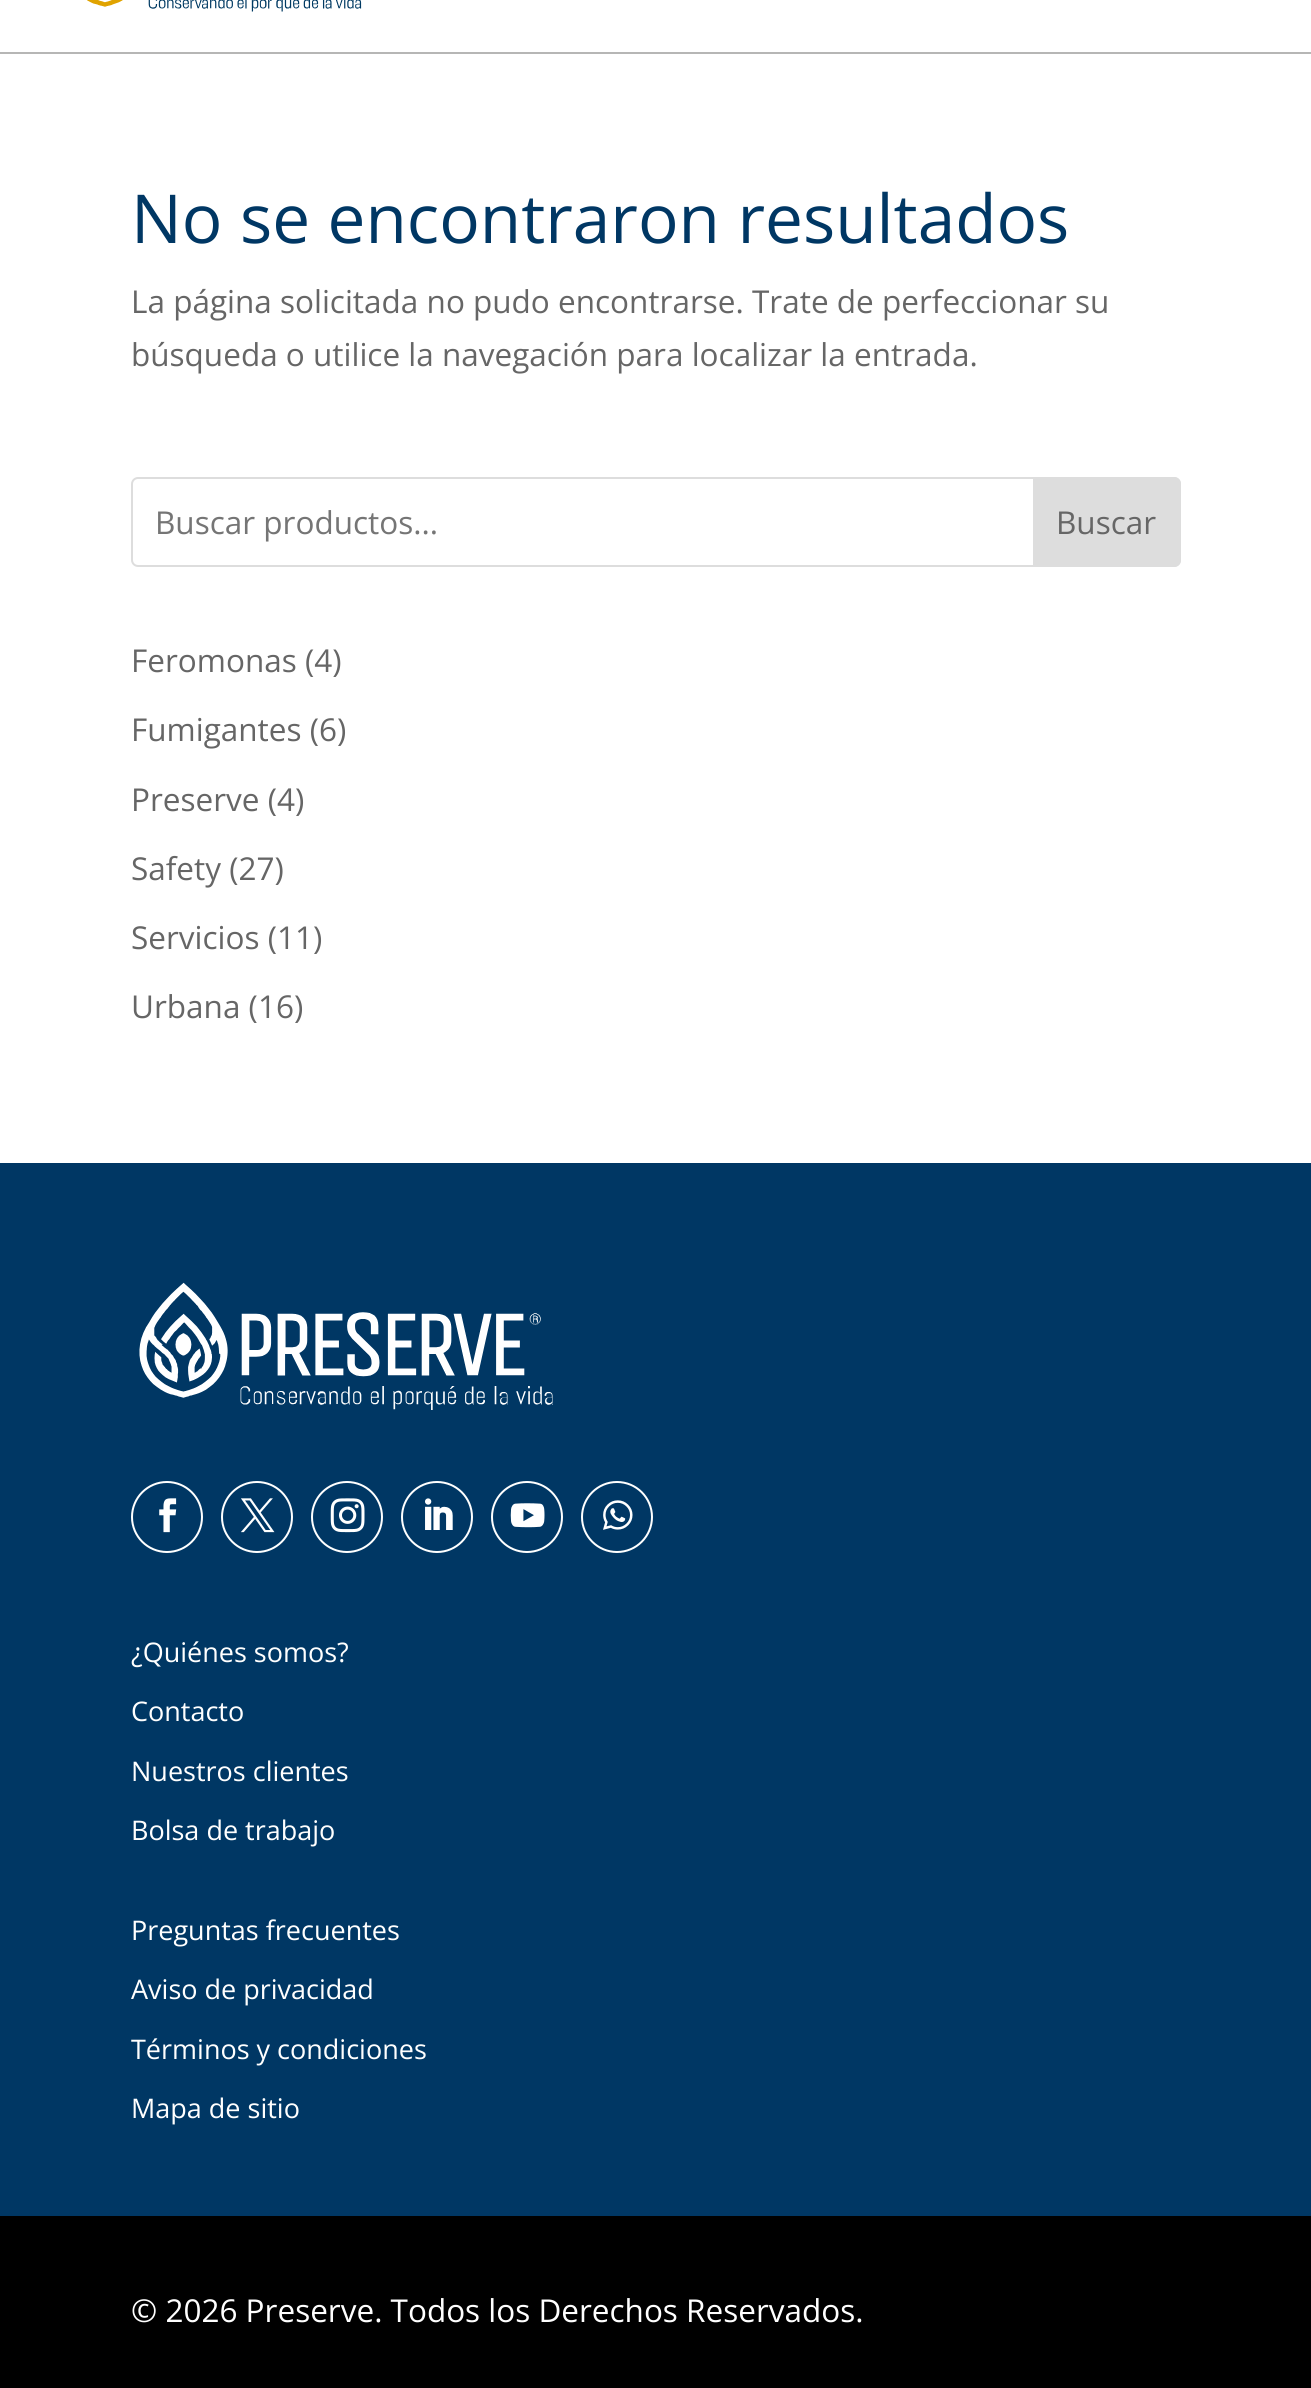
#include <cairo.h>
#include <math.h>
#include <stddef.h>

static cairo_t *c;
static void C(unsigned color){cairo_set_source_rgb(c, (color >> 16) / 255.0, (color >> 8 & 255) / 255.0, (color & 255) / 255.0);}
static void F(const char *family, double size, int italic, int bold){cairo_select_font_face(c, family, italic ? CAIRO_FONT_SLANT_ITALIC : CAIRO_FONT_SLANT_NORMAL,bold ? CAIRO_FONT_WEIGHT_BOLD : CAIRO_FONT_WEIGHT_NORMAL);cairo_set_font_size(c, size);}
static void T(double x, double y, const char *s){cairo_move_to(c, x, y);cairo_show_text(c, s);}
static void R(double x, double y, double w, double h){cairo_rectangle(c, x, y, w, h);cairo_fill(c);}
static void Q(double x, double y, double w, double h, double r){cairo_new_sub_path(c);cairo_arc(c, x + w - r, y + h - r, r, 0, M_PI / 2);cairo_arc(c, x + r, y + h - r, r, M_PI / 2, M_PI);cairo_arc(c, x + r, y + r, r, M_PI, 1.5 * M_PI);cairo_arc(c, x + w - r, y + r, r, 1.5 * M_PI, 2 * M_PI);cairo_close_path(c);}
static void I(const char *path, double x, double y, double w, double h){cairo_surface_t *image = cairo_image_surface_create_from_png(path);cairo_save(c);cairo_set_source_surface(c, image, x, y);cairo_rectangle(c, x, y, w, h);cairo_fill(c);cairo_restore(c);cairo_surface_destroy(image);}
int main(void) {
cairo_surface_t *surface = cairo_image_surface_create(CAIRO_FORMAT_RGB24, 1311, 2388);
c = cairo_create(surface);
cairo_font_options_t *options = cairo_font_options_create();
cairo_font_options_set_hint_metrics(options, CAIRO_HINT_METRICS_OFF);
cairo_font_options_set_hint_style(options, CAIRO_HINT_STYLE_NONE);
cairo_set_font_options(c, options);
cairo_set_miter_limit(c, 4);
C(0xffffff);
cairo_paint(c);
C(0xb6b6b5);
R(0,52,1311,2);
I("1.png",87,0,275,12);
F("Open Sans",67.5,0,0);
C(0x003764);
T(131,243,"No se encontraron resultados");
F("Open Sans",31.5,0,0);
C(0x666666);
T(131,313,"La página solicitada no pudo encontrarse. Trate de perfeccionar su");
T(131,366,"búsqueda o utilice la navegación para localizar la entrada.");
Q(132,478,1048,88,6);
C(0xdddddd);
cairo_stroke(c);
C(0x757575);
T(155,534,"Buscar productos...");
C(0xdddddd);
cairo_new_path(c);
cairo_move_to(c,1034,478);
cairo_line_to(c,1174,478);
cairo_curve_to(c,1177.5,478,1180,480.5,1180,484);
cairo_line_to(c,1180,560);
cairo_curve_to(c,1180,563.5,1177.5,566,1174,566);
cairo_line_to(c,1034,566);
cairo_close_path(c);
cairo_fill_preserve(c);
cairo_stroke(c);
C(0x666666);
T(1056,534,"Buscar");
T(131,672,"Feromonas (4)");
T(131,741,"Fumigantes (6)");
T(131,811,"Preserve (4)");
T(131,880,"Safety (27)");
T(131,949,"Servicios (11)");
T(131,1018,"Urbana (16)");
C(0x003764);
R(0,1163,1311,1053);
I("2.png",139,1282,414,128);
cairo_arc(c,167,1517,35,0,2 * M_PI);
C(0xffffff);
cairo_stroke(c);
I("3.png",159,1498,18,35);
cairo_arc(c,257,1517,35,0,2 * M_PI);
cairo_stroke(c);
I("4.png",241,1498,34,35);
cairo_arc(c,347,1517,35,0,2 * M_PI);
cairo_stroke(c);
I("5.png",330,1498,35,35);
cairo_arc(c,437,1517,35,0,2 * M_PI);
cairo_stroke(c);
I("6.png",425,1498,28,32);
cairo_arc(c,527,1517,35,0,2 * M_PI);
cairo_stroke(c);
I("7.png",510,1503,35,25);
cairo_arc(c,617,1517,35,0,2 * M_PI);
cairo_stroke(c);
I("8.png",603,1500,30,30);
F("Open Sans",27,0,0);
T(131,1662,"¿Quiénes somos?");
T(131,1721,"Contacto");
T(131,1781,"Nuestros clientes");
T(131,1840,"Bolsa de trabajo");
T(131,1940,"Preguntas frecuentes");
T(131,1999,"Aviso de privacidad");
T(131,2059,"Términos y condiciones");
T(131,2118,"Mapa de sitio");
C(0x000000);
R(0,2216,1311,172);
F("Open Sans",31.5,0,0);
C(0xffffff);
T(131,2322,"© 2026 Preserve. Todos los Derechos Reservados.");
cairo_surface_write_to_png(surface, "o.png");
cairo_font_options_destroy(options);
cairo_destroy(c);
cairo_surface_destroy(surface);
return 0;
}
